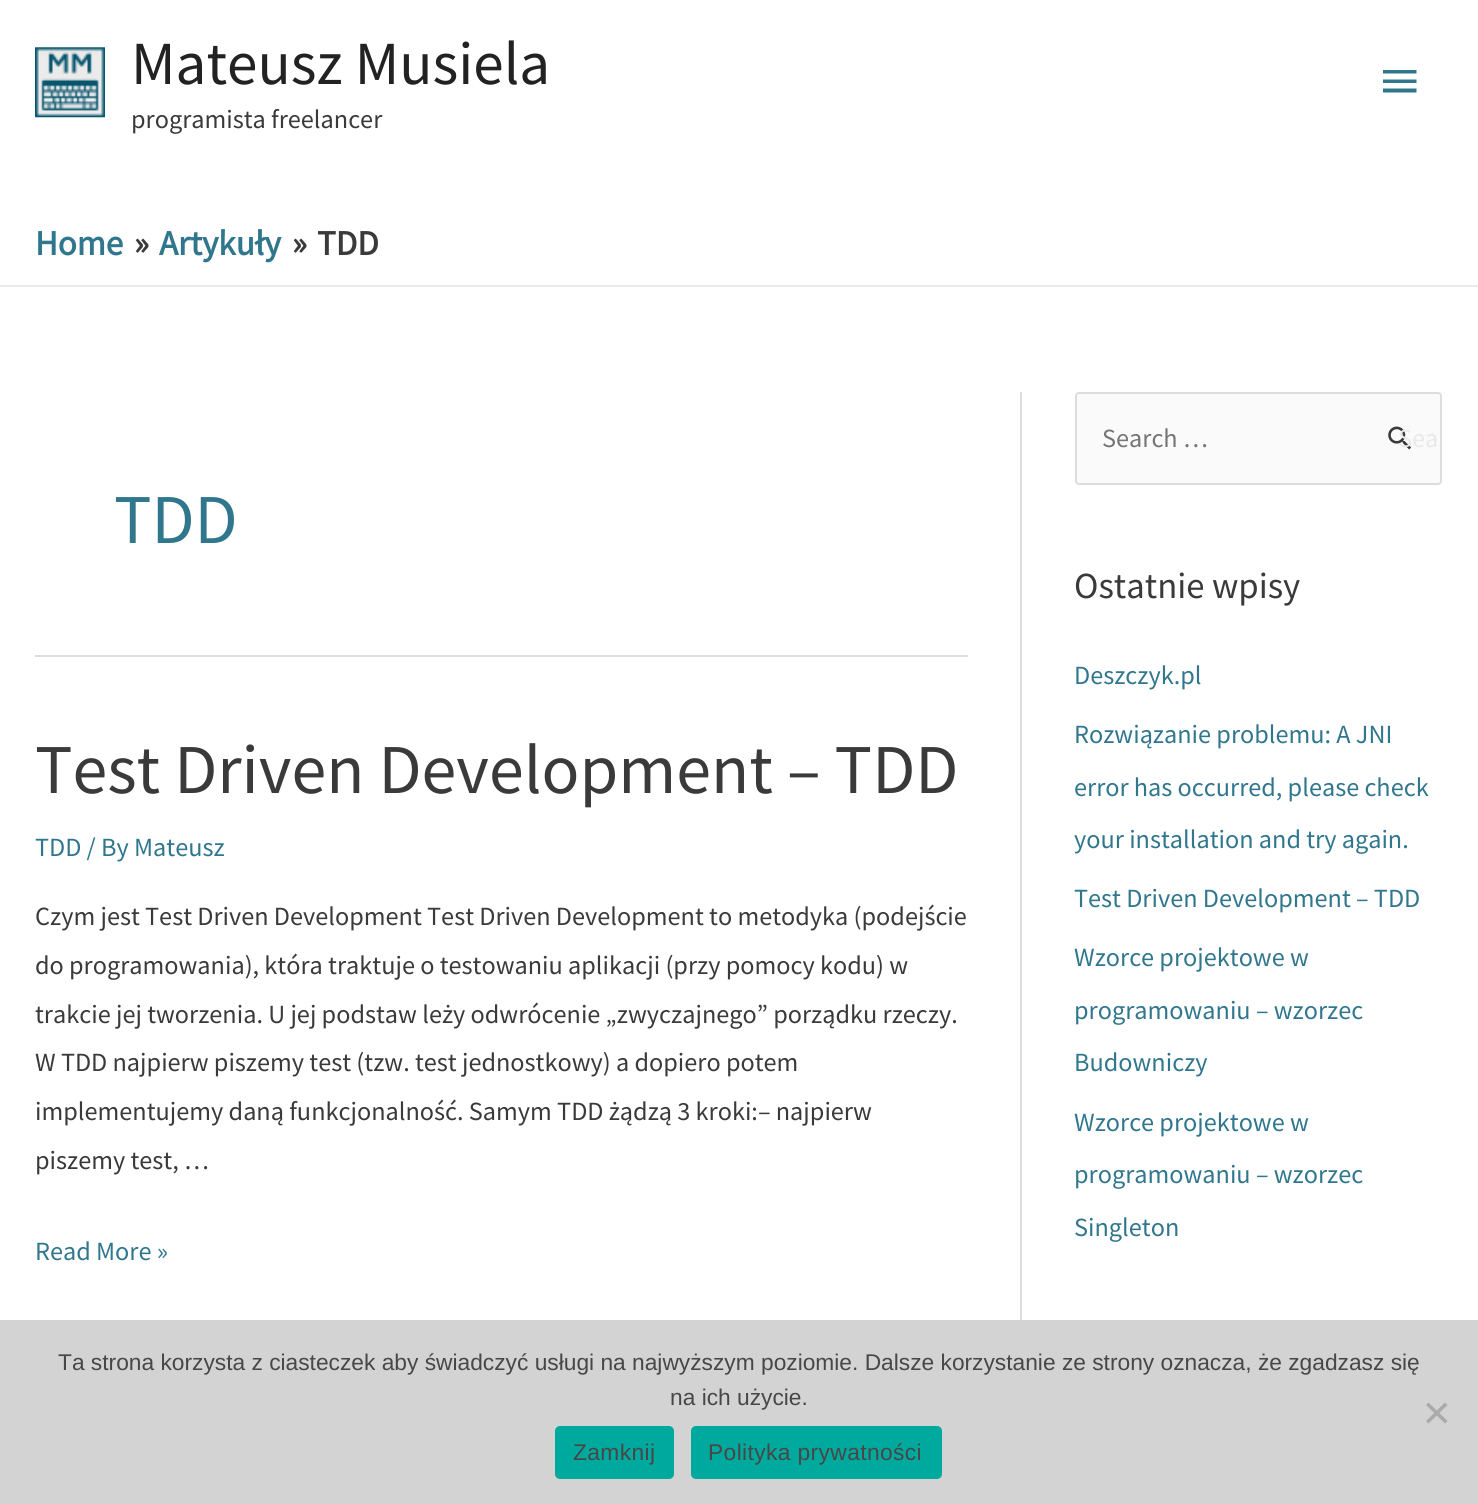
#include <cairo.h>
#include <math.h>
#include <stddef.h>

static cairo_t *c;
static void C(unsigned color){cairo_set_source_rgb(c, (color >> 16) / 255.0, (color >> 8 & 255) / 255.0, (color & 255) / 255.0);}
static void F(const char *family, double size, int italic, int bold){cairo_select_font_face(c, family, italic ? CAIRO_FONT_SLANT_ITALIC : CAIRO_FONT_SLANT_NORMAL,bold ? CAIRO_FONT_WEIGHT_BOLD : CAIRO_FONT_WEIGHT_NORMAL);cairo_set_font_size(c, size);}
static void T(double x, double y, const char *s){cairo_move_to(c, x, y);cairo_show_text(c, s);}
static void L(double x, double y, const char *s, double letter, double word){cairo_move_to(c, x, y);while (*s) {char ch[5] = {0};int n = 0;do ch[n++] = *s++; while ((*s & 0xC0) == 0x80);cairo_show_text(c, ch);cairo_rel_move_to(c, letter + word * (*ch == ' '), 0);}}
static void R(double x, double y, double w, double h){cairo_rectangle(c, x, y, w, h);cairo_fill(c);}
static void Q(double x, double y, double w, double h, double r){cairo_new_sub_path(c);cairo_arc(c, x + w - r, y + h - r, r, 0, M_PI / 2);cairo_arc(c, x + r, y + h - r, r, M_PI / 2, M_PI);cairo_arc(c, x + r, y + r, r, M_PI, 1.5 * M_PI);cairo_arc(c, x + w - r, y + r, r, 1.5 * M_PI, 2 * M_PI);cairo_close_path(c);}
static void I(const char *path, double x, double y, double w, double h){cairo_surface_t *image = cairo_image_surface_create_from_png(path);cairo_save(c);cairo_set_source_surface(c, image, x, y);cairo_rectangle(c, x, y, w, h);cairo_fill(c);cairo_restore(c);cairo_surface_destroy(image);}
int main(void) {
cairo_surface_t *surface = cairo_image_surface_create(CAIRO_FORMAT_RGB24, 1478, 1504);
c = cairo_create(surface);
cairo_font_options_t *options = cairo_font_options_create();
cairo_font_options_set_hint_metrics(options, CAIRO_HINT_METRICS_OFF);
cairo_font_options_set_hint_style(options, CAIRO_HINT_STYLE_NONE);
cairo_set_font_options(c, options);
cairo_set_miter_limit(c, 4);
C(0xffffff);
cairo_paint(c);
I("1.png",35,47,70,71);
F("Source Sans Pro",61.25,0,0);
C(0x222222);
T(131,84,"Mateusz Musiela");
F("Source Sans Pro",26.25,0,0);
C(0x3a3a3a);
T(131,128,"programista freelancer");
C(0x30778e);
cairo_new_path(c);
cairo_move_to(c,1383,70);
cairo_line_to(c,1416.5,70);
cairo_line_to(c,1416.5,73.5);
cairo_line_to(c,1383,73.5);
cairo_close_path(c);
cairo_move_to(c,1383,83);
cairo_line_to(c,1383,79.5);
cairo_line_to(c,1416.5,79.5);
cairo_line_to(c,1416.5,83);
cairo_close_path(c);
cairo_move_to(c,1383,92.5);
cairo_line_to(c,1383,88.5);
cairo_line_to(c,1416.5,88.5);
cairo_line_to(c,1416.5,92.5);
cairo_close_path(c);
cairo_fill(c);
C(0xeaeaea);
R(0,285,1478,2);
F("Source Sans Pro",35,0,1);
C(0x30778e);
T(35,255,"Home");
C(0x3a3a3a);
T(134,255,"»");
C(0x30778e);
T(159,255,"Artykuły");
C(0x3a3a3a);
T(292,255,"»");
T(317,255,"TDD");
C(0xdddddd);
R(35,655,933,2);
F("Source Sans Pro",70,0,0);
C(0x30778e);
T(114,543,"TDD");
C(0x3a3a3a);
T(35,793,"Test Driven Development – TDD");
F("Source Sans Pro",26.25,0,0);
C(0x30778e);
T(35,856,"TDD / By Mateusz");
C(0x3a3a3a);
T(35,925,"Czym jest Test Driven Development Test Driven Development to metodyka (podejście");
T(35,974,"do programowania), która traktuje o testowaniu aplikacji (przy pomocy kodu) w");
T(35,1023,"trakcie jej tworzenia. U jej podstaw leży odwrócenie „zwyczajnego” porządku rzeczy.");
T(35,1071,"W TDD najpierw piszemy test (tzw. test jednostkowy) a dopiero potem");
T(35,1120,"implementujemy daną funkcjonalność. Samym TDD żądzą 3 kroki:– najpierw");
T(35,1169,"piszemy test, …");
C(0x30778e);
T(35,1260,"Read More »");
C(0xdddddd);
R(1020,392,2,928);
C(0xfafafa);
Q(1076,393,365,91,3);
cairo_fill_preserve(c);
C(0xdddddd);
cairo_stroke(c);
C(0x757575);
T(1102,447,"Search …");
I("2.png",1388,426,23,24);
C(0xe9e9e9);
T(1398,447,"Sea");
F("Source Sans Pro",36.75,0,0);
C(0x3a3a3a);
T(1074,598,"Ostatnie wpisy");
F("Source Sans Pro",26.25,0,0);
C(0x30778e);
T(1074,684,"Deszczyk.pl");
T(1074,743,"Rozwiązanie problemu: A JNI");
T(1074,796,"error has occurred, please check");
T(1074,848,"your installation and try again.");
T(1074,907,"Test Driven Development – TDD");
T(1074,966,"Wzorce projektowe w");
T(1074,1019,"programowaniu – wzorzec");
T(1074,1071,"Budowniczy");
T(1074,1131,"Wzorce projektowe w");
T(1074,1183,"programowaniu – wzorzec");
T(1074,1236,"Singleton");
C(0xd3d3d3);
R(0,1320,1478,184);
F("Liberation Sans",22.75,0,0);
C(0x474747);
T(58,1370,"Ta strona korzysta z ciasteczek aby świadczyć usługi na najwyższym poziomie. Dalsze korzystanie ze strony oznacza, że zgadzasz się");
T(670,1405,"na ich użycie.");
C(0xaaaaaa);
cairo_new_path(c);
cairo_move_to(c,1445,1402.5);
cairo_line_to(c,1447.5,1405);
cairo_line_to(c,1428.5,1423.5);
cairo_line_to(c,1426,1421);
cairo_close_path(c);
cairo_fill(c);
cairo_new_path(c);
cairo_move_to(c,1426,1405);
cairo_line_to(c,1428.5,1402.5);
cairo_line_to(c,1447.5,1421);
cairo_line_to(c,1445,1423.5);
cairo_close_path(c);
cairo_fill(c);
C(0x00a99d);
Q(555,1426,119,53,5);
cairo_fill(c);
C(0x474747);
L(573,1460,"Zamknij",.4,0);
C(0x00a99d);
Q(691,1426,251,53,5);
cairo_fill(c);
C(0x474747);
L(708,1460,"Polityka prywatności",.4,0);
cairo_surface_write_to_png(surface, "o.png");
cairo_font_options_destroy(options);
cairo_destroy(c);
cairo_surface_destroy(surface);
return 0;
}
